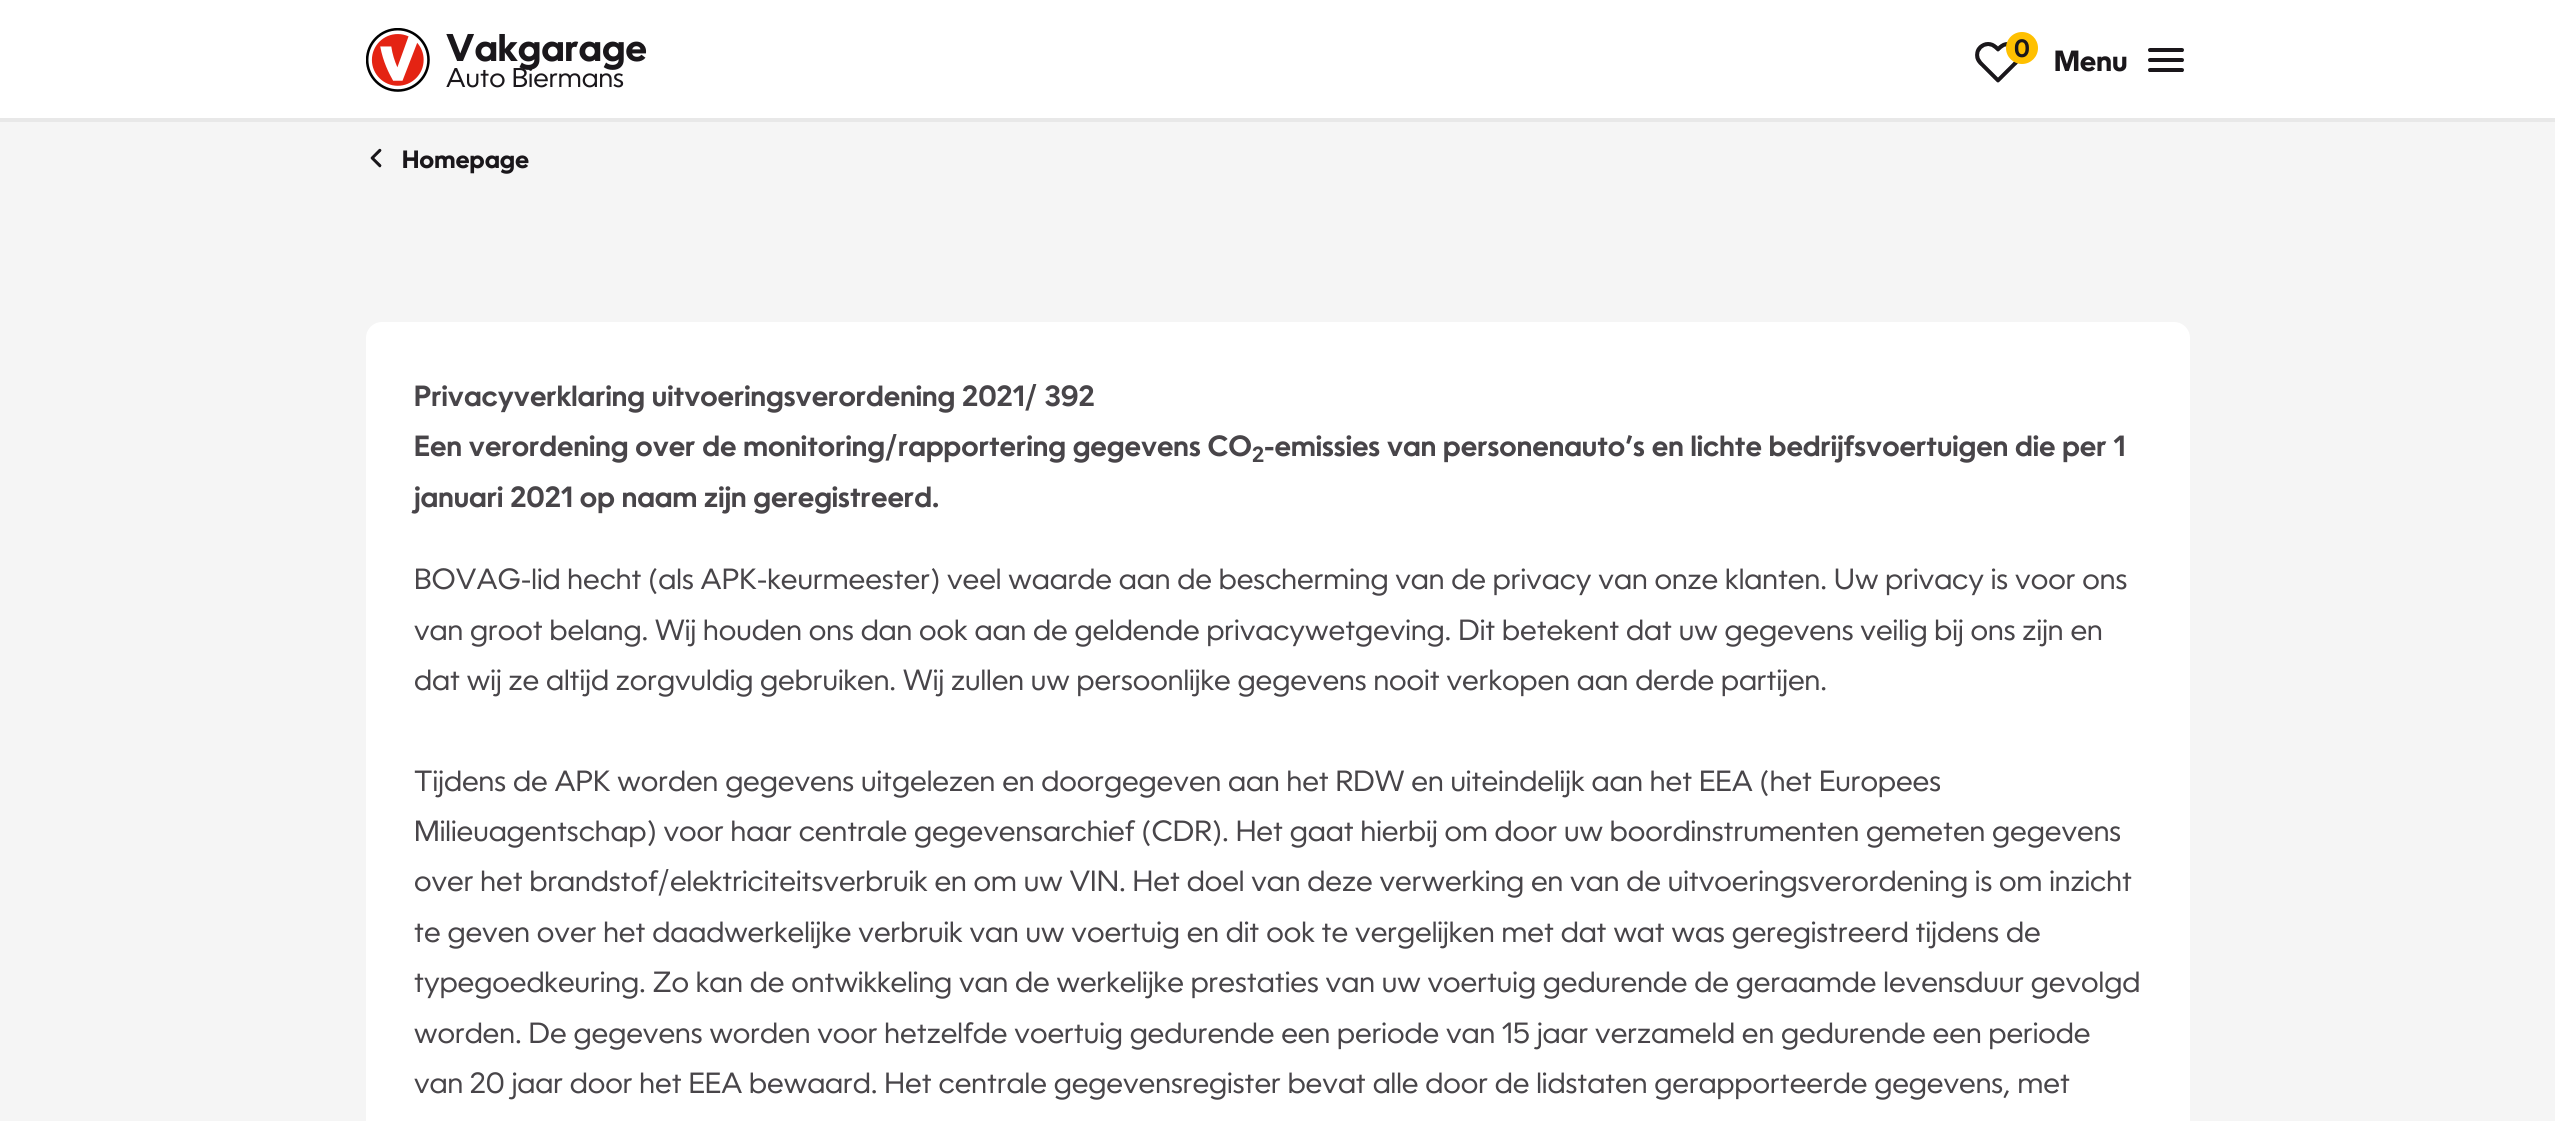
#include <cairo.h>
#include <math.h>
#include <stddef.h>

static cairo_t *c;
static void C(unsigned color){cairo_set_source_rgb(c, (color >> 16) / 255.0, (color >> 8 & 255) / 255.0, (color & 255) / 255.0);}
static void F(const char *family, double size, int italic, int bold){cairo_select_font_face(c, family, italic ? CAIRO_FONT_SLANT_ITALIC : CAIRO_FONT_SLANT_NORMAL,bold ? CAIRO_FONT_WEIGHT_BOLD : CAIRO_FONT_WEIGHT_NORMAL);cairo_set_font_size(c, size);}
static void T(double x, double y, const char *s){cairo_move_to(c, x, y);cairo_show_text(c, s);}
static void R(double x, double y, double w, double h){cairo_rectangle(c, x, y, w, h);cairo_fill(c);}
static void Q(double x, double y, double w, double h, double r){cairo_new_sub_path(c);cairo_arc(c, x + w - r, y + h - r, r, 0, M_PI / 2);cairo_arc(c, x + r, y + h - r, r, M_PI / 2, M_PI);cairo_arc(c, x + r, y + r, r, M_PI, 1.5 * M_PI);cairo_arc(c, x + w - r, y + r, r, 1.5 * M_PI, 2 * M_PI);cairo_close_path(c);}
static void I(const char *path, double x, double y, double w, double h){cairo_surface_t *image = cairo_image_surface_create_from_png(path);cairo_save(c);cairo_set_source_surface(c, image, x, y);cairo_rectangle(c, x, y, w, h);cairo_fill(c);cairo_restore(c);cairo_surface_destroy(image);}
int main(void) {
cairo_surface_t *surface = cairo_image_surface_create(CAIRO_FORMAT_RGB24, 2555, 1121);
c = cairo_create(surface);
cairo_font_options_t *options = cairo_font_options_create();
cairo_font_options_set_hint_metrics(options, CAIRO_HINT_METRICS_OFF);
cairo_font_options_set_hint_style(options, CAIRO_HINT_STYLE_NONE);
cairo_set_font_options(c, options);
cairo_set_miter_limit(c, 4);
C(0xf5f5f5);
cairo_paint(c);
C(0xffffff);
R(0,0,2555,118);
C(0xe8e8e8);
R(0,118,2555,4);
I("1.png",366,28,64,64);
F("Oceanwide",37,0,1);
C(0x1a171b);
T(446,61,"Vakgarage");
F("Oceanwide",26,0,0);
T(446,87,"Auto Biermans");
I("2.png",1975,42,43,41);
C(0xffc000);
cairo_arc(c,2022,48,16,0,2 * M_PI);
cairo_fill(c);
F("Oceanwide SemiBold",24,0,0);
C(0x1a171b);
T(2014,57,"0");
F("Oceanwide",28,0,1);
T(2054,71,"Menu");
I("3.png",2148,48,36,24);
I("4.png",370,148,12,20);
F("Oceanwide",24,0,1);
T(402,168,"Homepage");
C(0xffffff);
Q(366,322,1824,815,16);
cairo_fill(c);
F("Oceanwide SemiBold",28,0,0);
C(0x484549);
T(414,406,"Privacyverklaring uitvoeringsverordening 2021/ 392");
T(414,456,"Een verordening over de monitoring/rapportering gegevens CO");
F("Oceanwide SemiBold",21,0,0);
T(1252,462,"2");
F("Oceanwide SemiBold",28,0,0);
T(1264,456,"-emissies van personenauto’s en lichte bedrijfsvoertuigen die per 1");
T(414,507,"januari 2021 op naam zijn geregistreerd.");
F("Oceanwide",28,0,0);
T(414,589,"BOVAG-lid hecht (als APK-keurmeester) veel waarde aan de bescherming van de privacy van onze klanten. Uw privacy is voor ons");
T(414,640,"van groot belang. Wij houden ons dan ook aan de geldende privacywetgeving. Dit betekent dat uw gegevens veilig bij ons zijn en");
T(414,690,"dat wij ze altijd zorgvuldig gebruiken. Wij zullen uw persoonlijke gegevens nooit verkopen aan derde partijen.");
T(414,791,"Tijdens de APK worden gegevens uitgelezen en doorgegeven aan het RDW en uiteindelijk aan het EEA (het Europees");
T(414,841,"Milieuagentschap) voor haar centrale gegevensarchief (CDR). Het gaat hierbij om door uw boordinstrumenten gemeten gegevens");
T(414,891,"over het brandstof/elektriciteitsverbruik en om uw VIN. Het doel van deze verwerking en van de uitvoeringsverordening is om inzicht");
T(414,942,"te geven over het daadwerkelijke verbruik van uw voertuig en dit ook te vergelijken met dat wat was geregistreerd tijdens de");
T(414,992,"typegoedkeuring. Zo kan de ontwikkeling van de werkelijke prestaties van uw voertuig gedurende de geraamde levensduur gevolgd");
T(414,1043,"worden. De gegevens worden voor hetzelfde voertuig gedurende een periode van 15 jaar verzameld en gedurende een periode");
T(414,1093,"van 20 jaar door het EEA bewaard. Het centrale gegevensregister bevat alle door de lidstaten gerapporteerde gegevens, met");
cairo_surface_write_to_png(surface, "o.png");
cairo_font_options_destroy(options);
cairo_destroy(c);
cairo_surface_destroy(surface);
return 0;
}
